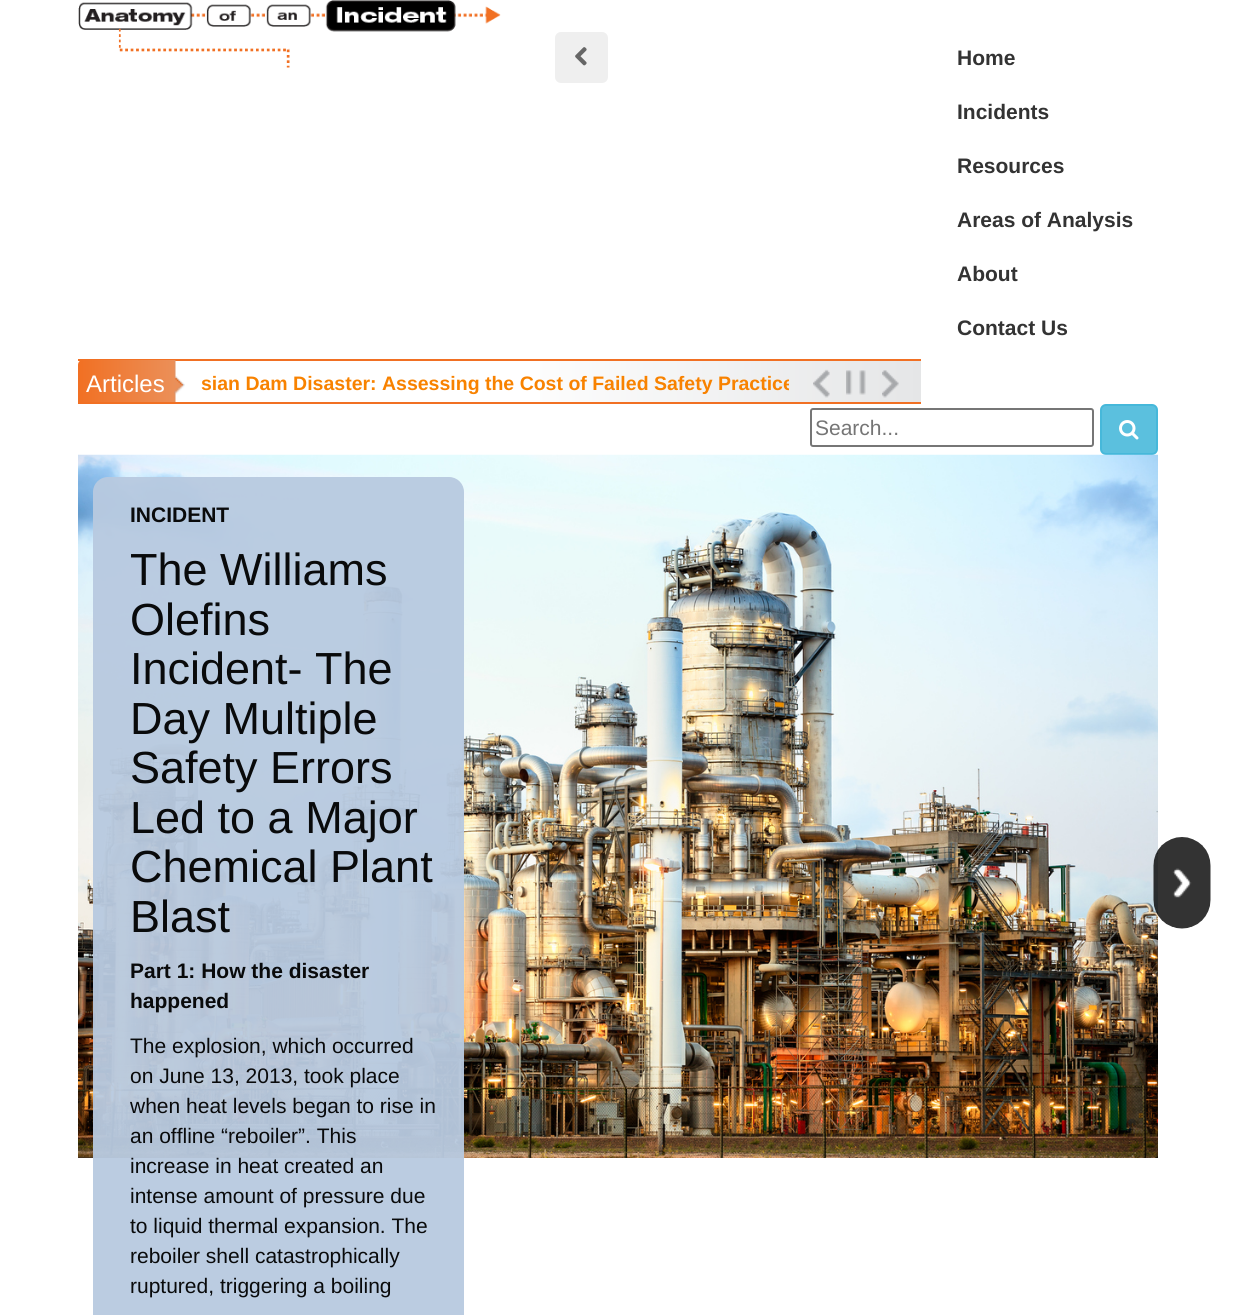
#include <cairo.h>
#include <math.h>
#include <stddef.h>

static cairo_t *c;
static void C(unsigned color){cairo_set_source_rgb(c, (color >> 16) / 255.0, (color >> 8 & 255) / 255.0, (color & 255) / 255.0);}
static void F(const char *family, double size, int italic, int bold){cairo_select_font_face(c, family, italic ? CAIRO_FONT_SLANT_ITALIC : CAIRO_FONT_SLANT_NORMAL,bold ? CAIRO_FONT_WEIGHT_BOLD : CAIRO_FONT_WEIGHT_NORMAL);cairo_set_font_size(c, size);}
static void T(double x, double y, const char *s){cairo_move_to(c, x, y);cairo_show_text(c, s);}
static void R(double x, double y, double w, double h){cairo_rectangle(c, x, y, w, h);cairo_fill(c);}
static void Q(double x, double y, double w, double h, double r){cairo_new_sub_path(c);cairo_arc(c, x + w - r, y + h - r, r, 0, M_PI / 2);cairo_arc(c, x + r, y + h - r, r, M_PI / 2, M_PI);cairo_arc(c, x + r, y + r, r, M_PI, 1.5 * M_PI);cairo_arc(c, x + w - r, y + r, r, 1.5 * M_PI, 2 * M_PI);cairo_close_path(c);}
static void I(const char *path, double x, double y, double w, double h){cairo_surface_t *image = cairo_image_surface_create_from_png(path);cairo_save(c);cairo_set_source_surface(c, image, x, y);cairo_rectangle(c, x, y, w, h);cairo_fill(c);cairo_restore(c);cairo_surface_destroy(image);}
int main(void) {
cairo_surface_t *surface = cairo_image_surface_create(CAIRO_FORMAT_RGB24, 1234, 1315);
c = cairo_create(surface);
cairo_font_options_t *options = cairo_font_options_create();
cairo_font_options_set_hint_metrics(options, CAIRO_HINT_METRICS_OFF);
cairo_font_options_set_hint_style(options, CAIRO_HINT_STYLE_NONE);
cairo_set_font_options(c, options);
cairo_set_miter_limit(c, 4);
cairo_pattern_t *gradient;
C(0xffffff);
cairo_paint(c);
I("1.png",78,0,423,68);
C(0xefefef);
Q(555,32,53,51,6);
cairo_fill(c);
I("2.png",575,47,12,19);
F("Liberation Sans",21,0,1);
C(0x333333);
T(957,65,"Home");
T(957,119,"Incidents");
T(957,173,"Resources");
T(957,227,"Areas of Analysis");
T(957,281,"About");
T(957,335,"Contact Us");
gradient = cairo_pattern_create_linear(78,381,921,381);
cairo_pattern_add_color_stop_rgba(gradient,0,1,1,1,1);
cairo_pattern_add_color_stop_rgba(gradient,.5,1,1,1,1);
cairo_pattern_add_color_stop_rgba(gradient,1,0.898,0.902,0.906,1);
cairo_set_source(c,gradient);
cairo_pattern_destroy(gradient);
R(540,361,381,41);
C(0xf17023);
R(78,359,843,2);
R(78,402,843,2);
I("3.png",174,360,11,42);
gradient = cairo_pattern_create_linear(78,384,174,384);
cairo_pattern_add_color_stop_rgba(gradient,0,0.945,0.439,0.137,1);
cairo_pattern_add_color_stop_rgba(gradient,1,0.922,0.561,0.345,1);
cairo_set_source(c,gradient);
cairo_pattern_destroy(gradient);
cairo_new_path(c);
cairo_move_to(c,83,360);
cairo_line_to(c,174,360);
cairo_line_to(c,174,402);
cairo_line_to(c,78,402);
cairo_line_to(c,78,365);
cairo_curve_to(c,78,362,80,360,83,360);
cairo_close_path(c);
cairo_fill(c);
F("Liberation Sans",24,0,0);
C(0xffffff);
T(86,392,"Articles");
cairo_save(c);
cairo_rectangle(c,200,360,589,42);
cairo_clip(c);
F("Liberation Sans",19.5,0,1);
C(0xf88200);
T(201,390,"sian Dam Disaster: Assessing the Cost of Failed Safety Practice");
cairo_restore(c);
I("4.png",813,369,17,29);
I("5.png",846,370,20,25);
I("6.png",882,370,17,28);
Q(811,409,282,37,2);
C(0x767676);
cairo_stroke(c);
F("Liberation Sans",21,0,0);
C(0x757575);
T(815,435,"Search...");
C(0x5bc0de);
Q(1101,405,56,49,5);
cairo_fill_preserve(c);
C(0x46b8da);
cairo_stroke(c);
I("7.png",1119,420,20,20);
I("8.png",78,454,1080,704);
I("9.png",1153,837,58,92);
cairo_set_source_rgba(c,0.722,0.792,0.878,0.95);
Q(93,477,371,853,15);
cairo_fill(c);
F("Liberation Sans",21,0,1);
C(0x090a0b);
T(130,522,"INCIDENT");
F("Liberation Sans",45,0,0);
T(130,585,"The Williams");
T(130,635,"Olefins");
T(130,684,"Incident- The");
T(130,734,"Day Multiple");
T(130,783,"Safety Errors");
T(130,833,"Led to a Major");
T(130,882,"Chemical Plant");
T(130,932,"Blast");
F("Liberation Sans",21,0,1);
T(130,978,"Part 1: How the disaster");
T(130,1008,"happened");
F("Liberation Sans",21,0,0);
T(130,1053,"The explosion, which occurred");
T(130,1083,"on June 13, 2013, took place");
T(130,1113,"when heat levels began to rise in");
T(130,1143,"an offline “reboiler”. This");
T(130,1173,"increase in heat created an");
T(130,1203,"intense amount of pressure due");
T(130,1233,"to liquid thermal expansion. The");
T(130,1263,"reboiler shell catastrophically");
T(130,1293,"ruptured, triggering a boiling");
cairo_surface_write_to_png(surface, "o.png");
cairo_font_options_destroy(options);
cairo_destroy(c);
cairo_surface_destroy(surface);
return 0;
}
